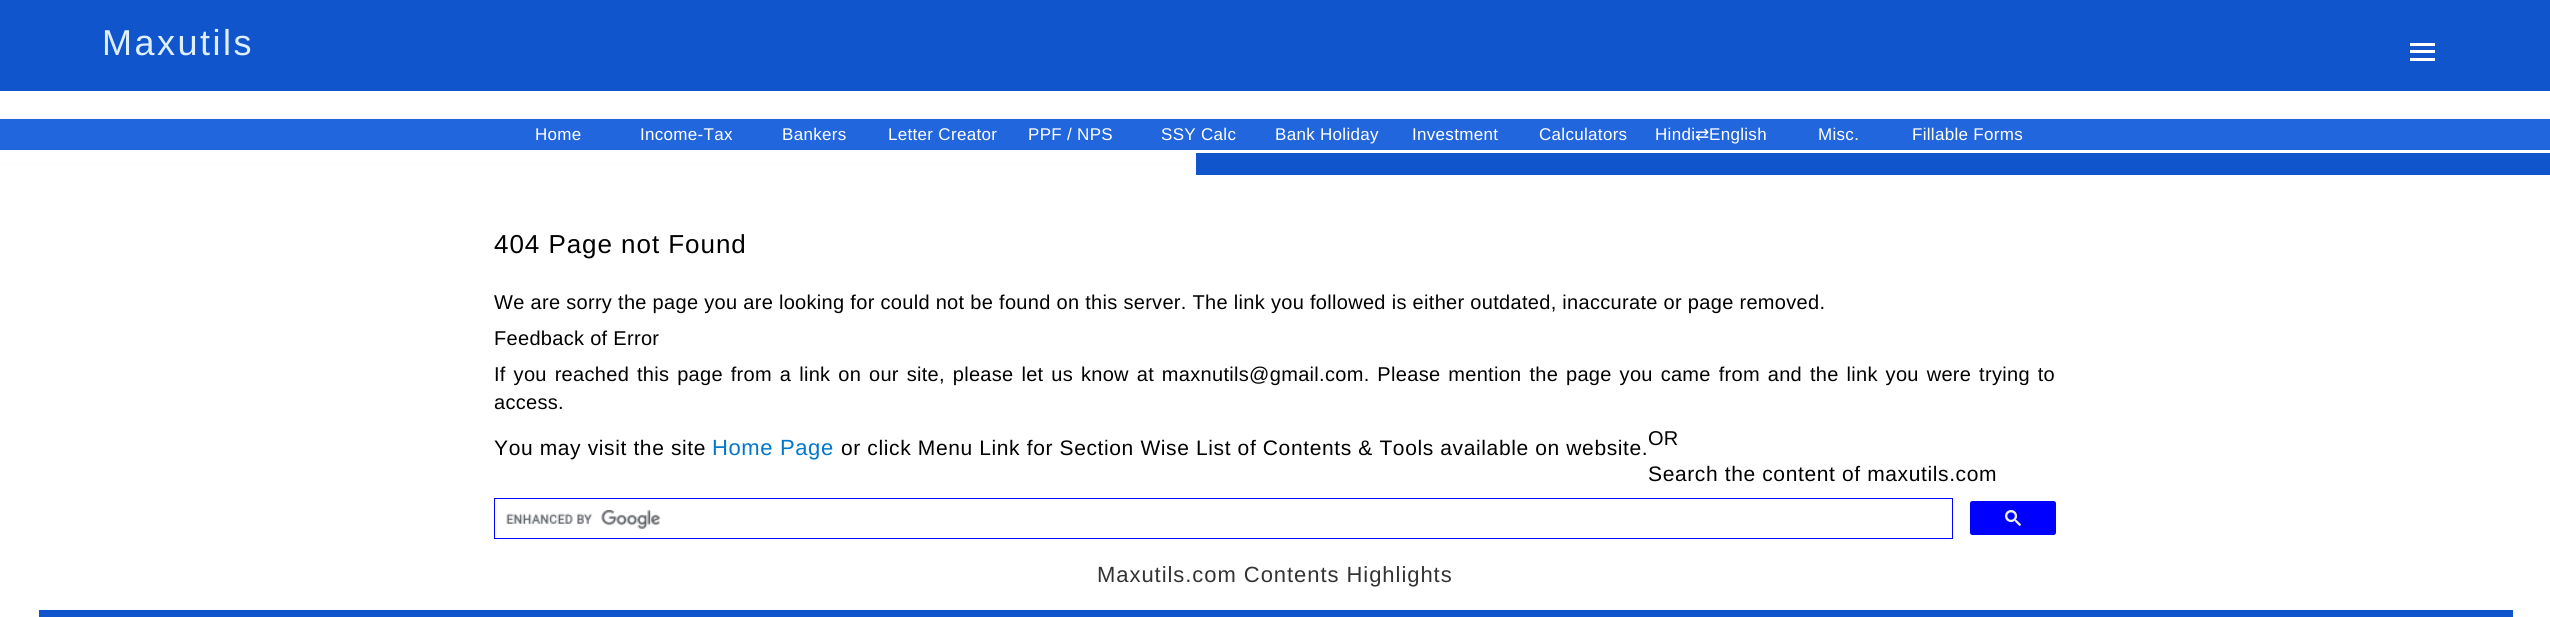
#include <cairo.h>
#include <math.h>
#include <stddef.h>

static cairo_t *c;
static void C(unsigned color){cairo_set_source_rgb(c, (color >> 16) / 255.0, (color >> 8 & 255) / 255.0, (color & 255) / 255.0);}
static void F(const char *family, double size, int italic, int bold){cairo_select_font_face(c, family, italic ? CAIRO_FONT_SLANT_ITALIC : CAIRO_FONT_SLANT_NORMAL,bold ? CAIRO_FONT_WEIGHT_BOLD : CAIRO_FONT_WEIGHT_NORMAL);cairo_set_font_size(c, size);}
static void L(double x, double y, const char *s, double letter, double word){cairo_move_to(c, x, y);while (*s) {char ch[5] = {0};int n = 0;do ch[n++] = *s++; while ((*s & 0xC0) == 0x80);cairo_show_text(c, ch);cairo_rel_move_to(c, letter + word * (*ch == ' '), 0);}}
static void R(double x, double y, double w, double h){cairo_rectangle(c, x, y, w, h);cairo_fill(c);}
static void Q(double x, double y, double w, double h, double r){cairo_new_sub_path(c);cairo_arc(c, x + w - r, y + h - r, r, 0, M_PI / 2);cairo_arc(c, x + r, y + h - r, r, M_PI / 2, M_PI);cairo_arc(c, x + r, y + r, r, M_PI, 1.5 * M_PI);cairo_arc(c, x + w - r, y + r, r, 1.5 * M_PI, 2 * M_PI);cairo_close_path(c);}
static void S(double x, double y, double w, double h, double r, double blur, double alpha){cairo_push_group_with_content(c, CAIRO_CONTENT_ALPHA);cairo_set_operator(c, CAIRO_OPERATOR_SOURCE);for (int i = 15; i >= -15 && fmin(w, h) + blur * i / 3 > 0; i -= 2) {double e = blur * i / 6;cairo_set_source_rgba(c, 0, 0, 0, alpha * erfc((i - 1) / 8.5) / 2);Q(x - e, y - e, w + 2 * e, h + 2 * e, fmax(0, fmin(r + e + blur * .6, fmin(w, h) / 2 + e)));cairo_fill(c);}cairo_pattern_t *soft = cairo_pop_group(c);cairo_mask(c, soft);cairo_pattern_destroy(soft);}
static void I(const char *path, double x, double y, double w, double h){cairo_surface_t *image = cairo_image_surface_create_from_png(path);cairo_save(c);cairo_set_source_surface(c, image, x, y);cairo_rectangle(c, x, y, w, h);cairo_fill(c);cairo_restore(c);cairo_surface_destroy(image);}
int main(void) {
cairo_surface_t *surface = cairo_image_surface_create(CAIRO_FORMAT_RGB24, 2550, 617);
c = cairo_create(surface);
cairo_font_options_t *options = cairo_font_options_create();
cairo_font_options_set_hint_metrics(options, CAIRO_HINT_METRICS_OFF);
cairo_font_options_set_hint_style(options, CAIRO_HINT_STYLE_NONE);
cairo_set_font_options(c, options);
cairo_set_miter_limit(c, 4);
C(0xffffff);
cairo_paint(c);
C(0x1155cc);
R(0,0,2550,91);
F("Liberation Sans",36,0,0);
C(0xddeeff);
L(102,55,"Maxutils",2.5,0);
C(0xffffff);
R(2410,43,25,3);
R(2410,50,25,3);
R(2410,58,25,3);
C(0xbbbbbb);
S(0,124,2550,31,0,4.5,1);
C(0x2266dd);
R(0,119,2550,31);
F("Liberation Sans",17,0,0);
C(0xffffff);
L(535,140,"Home",.31,0);
L(640,140,"Income-Tax",.31,0);
L(782,140,"Bankers",.31,0);
L(888,140,"Letter Creator",.31,0);
L(1028,140,"PPF / NPS",.31,0);
L(1161,140,"SSY Calc",.31,0);
L(1275,140,"Bank Holiday",.31,0);
L(1412,140,"Investment",.31,0);
L(1539,140,"Calculators",.31,0);
L(1655,140,"Hindi",.31,0);
F("DejaVu Sans",17,0,0);
L(1695,140,"⇄",.31,0);
F("Liberation Sans",17,0,0);
L(1709,140,"English",.31,0);
L(1818,140,"Misc.",.31,0);
L(1912,140,"Fillable Forms",.31,0);
R(0,150,2550,13);
C(0x1155cc);
R(1196,153,1354,22);
F("Liberation Sans",26,0,0);
C(0x000000);
L(494,253,"404 Page not Found",.95,0);
F("Liberation Sans",20,0,0);
L(494,309,"We are sorry the page you are looking for could not be found on this server. The link you followed is either outdated, inaccurate or page removed.",.31,0);
L(494,345,"Feedback of Error",.31,0);
L(494,381,"If you reached this page from a link on our site, please let us know at maxnutils@gmail.com. Please mention the page you came from and the link you were trying to",.31,2);
L(494,409,"access.",.31,0);
F("Liberation Sans",21,0,0);
L(494,455,"You may visit the site",.62,0);
F("Liberation Sans",22,0,0);
C(0x0077cc);
L(712,455,"Home Page",.62,0);
F("Liberation Sans",21,0,0);
C(0x000000);
L(841,455,"or click Menu Link for Section Wise List of Contents & Tools available on website.",.62,0);
F("Liberation Sans",20,0,0);
L(1648,445,"OR",.31,0);
F("Liberation Sans",21,0,0);
L(1648,481,"Search the content of maxutils.com",.62,0);
cairo_rectangle(c,494.5,498.5,1458,40);
C(0x0000ff);
cairo_set_line_width(c,1);
cairo_stroke(c);
I("1.png",506,510,154,19);
Q(1970.5,501.5,85,33,2);
cairo_fill_preserve(c);
cairo_stroke(c);
I("2.png",2005,510,16,16);
F("Liberation Sans",22,0,0);
C(0x333333);
L(1097,582,"Maxutils.com Contents Highlights",.95,0);
C(0x1155cc);
R(39,610,2474,7);
cairo_surface_write_to_png(surface, "o.png");
cairo_font_options_destroy(options);
cairo_destroy(c);
cairo_surface_destroy(surface);
return 0;
}
